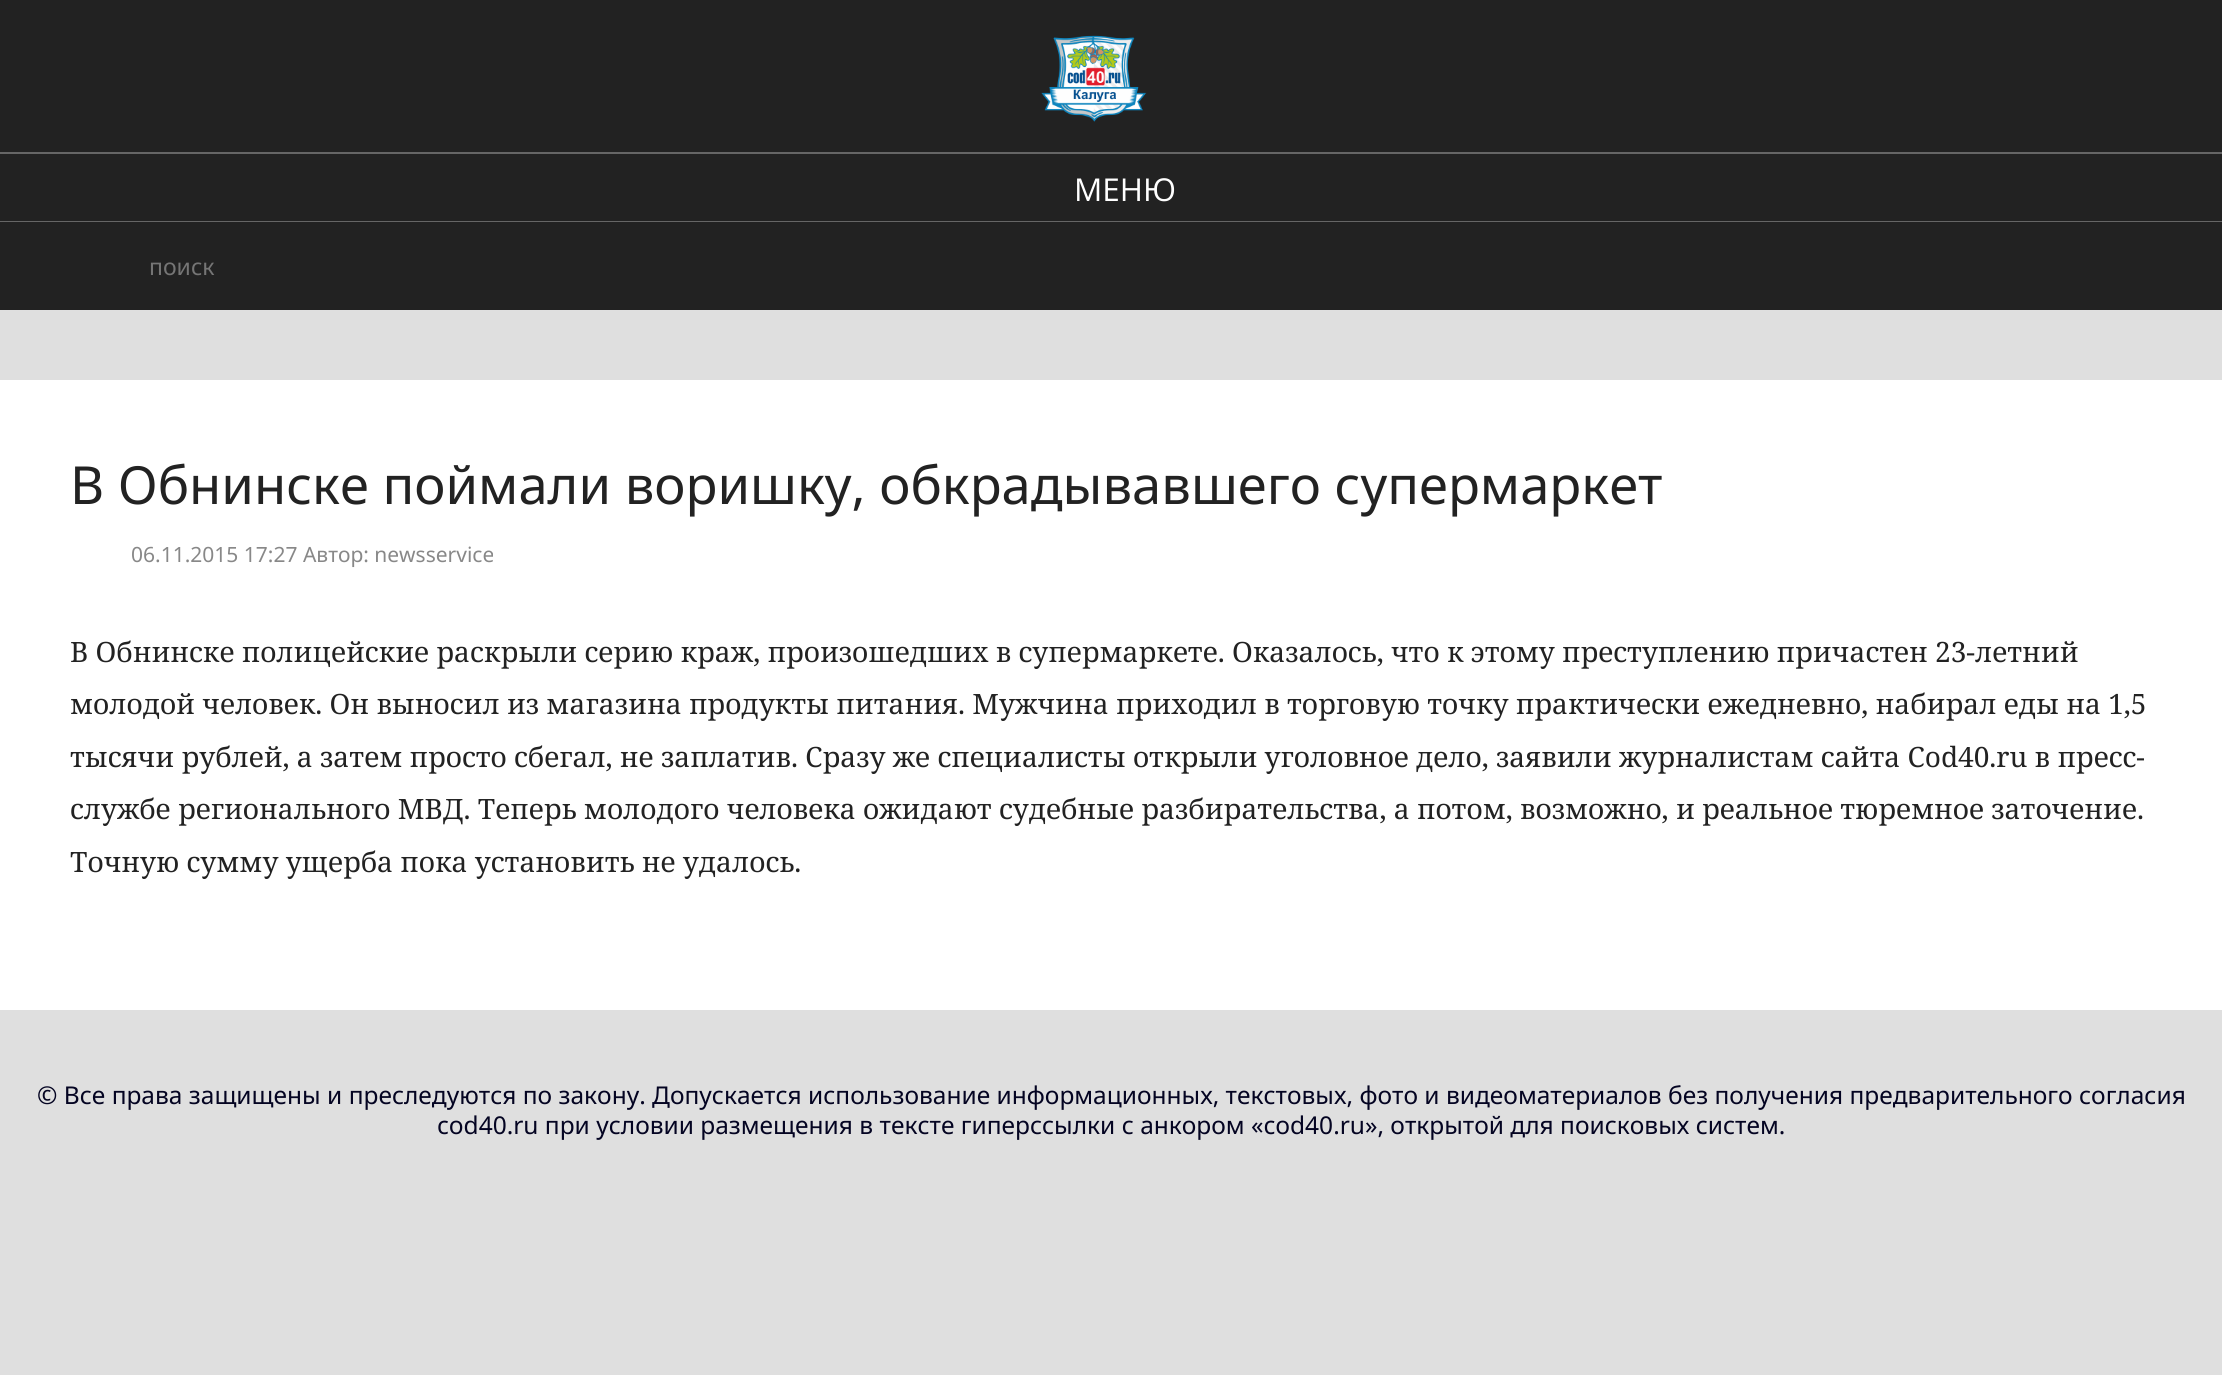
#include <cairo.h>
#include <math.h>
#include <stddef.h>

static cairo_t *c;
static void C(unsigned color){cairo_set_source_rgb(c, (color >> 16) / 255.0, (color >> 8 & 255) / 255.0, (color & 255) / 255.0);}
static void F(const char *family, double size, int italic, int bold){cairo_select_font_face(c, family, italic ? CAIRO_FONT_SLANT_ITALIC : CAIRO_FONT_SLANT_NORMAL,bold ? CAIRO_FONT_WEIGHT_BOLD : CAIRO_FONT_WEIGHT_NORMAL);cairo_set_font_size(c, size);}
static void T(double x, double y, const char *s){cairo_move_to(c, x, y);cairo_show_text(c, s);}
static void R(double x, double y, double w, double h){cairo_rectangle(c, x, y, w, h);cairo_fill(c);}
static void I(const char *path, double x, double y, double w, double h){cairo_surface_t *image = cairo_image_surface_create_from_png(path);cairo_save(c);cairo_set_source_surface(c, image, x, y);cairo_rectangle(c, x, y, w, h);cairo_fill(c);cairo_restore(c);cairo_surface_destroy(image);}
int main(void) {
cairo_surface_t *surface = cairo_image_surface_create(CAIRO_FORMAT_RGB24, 2222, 1375);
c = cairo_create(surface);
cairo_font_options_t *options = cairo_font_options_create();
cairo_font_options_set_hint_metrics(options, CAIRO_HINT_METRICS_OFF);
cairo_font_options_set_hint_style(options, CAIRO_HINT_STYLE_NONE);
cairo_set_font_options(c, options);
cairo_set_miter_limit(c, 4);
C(0xdfdfdf);
cairo_paint(c);
C(0x222222);
R(0,0,2222,310);
I("1.png",1041,35,106,87);
C(0x666666);
R(0,152,2222,2);
R(0,221,2222,1);
F("Open Sans",31.5,0,0);
C(0xffffff);
T(1074,201,"МЕНЮ");
F("Noto Sans",23,0,0);
C(0x757575);
T(149,275,"поиск");
C(0xffffff);
R(0,380,2222,630);
F("Noto Sans",52.5,0,0);
C(0x222222);
T(70,504,"В Обнинске поймали воришку, обкрадывавшего супермаркет");
F("Noto Sans",21,0,0);
C(0x888888);
T(131,562,"06.11.2015 17:27 Автор: newsservice");
F("Noto Serif",28,0,0);
C(0x222222);
T(70,662,"В Обнинске полицейские раскрыли серию краж, произошедших в супермаркете. Оказалось, что к этому преступлению причастен 23-летний");
T(70,714,"молодой человек. Он выносил из магазина продукты питания. Мужчина приходил в торговую точку практически ежедневно, набирал еды на 1,5");
T(70,767,"тысячи рублей, а затем просто сбегал, не заплатив. Сразу же специалисты открыли уголовное дело, заявили журналистам сайта Cod40.ru в пресс-");
T(70,819,"службе регионального МВД. Теперь молодого человека ожидают судебные разбирательства, а потом, возможно, и реальное тюремное заточение.");
T(70,872,"Точную сумму ущерба пока установить не удалось.");
F("Noto Sans",24.5,0,0);
C(0x040422);
T(37,1104,"© Все права защищены и преследуются по закону. Допускается использование информационных, текстовых, фото и видеоматериалов без получения предварительного согласия");
T(437,1134,"cod40.ru при условии размещения в тексте гиперссылки с анкором «cod40.ru», открытой для поисковых систем.");
cairo_surface_write_to_png(surface, "o.png");
cairo_font_options_destroy(options);
cairo_destroy(c);
cairo_surface_destroy(surface);
return 0;
}
